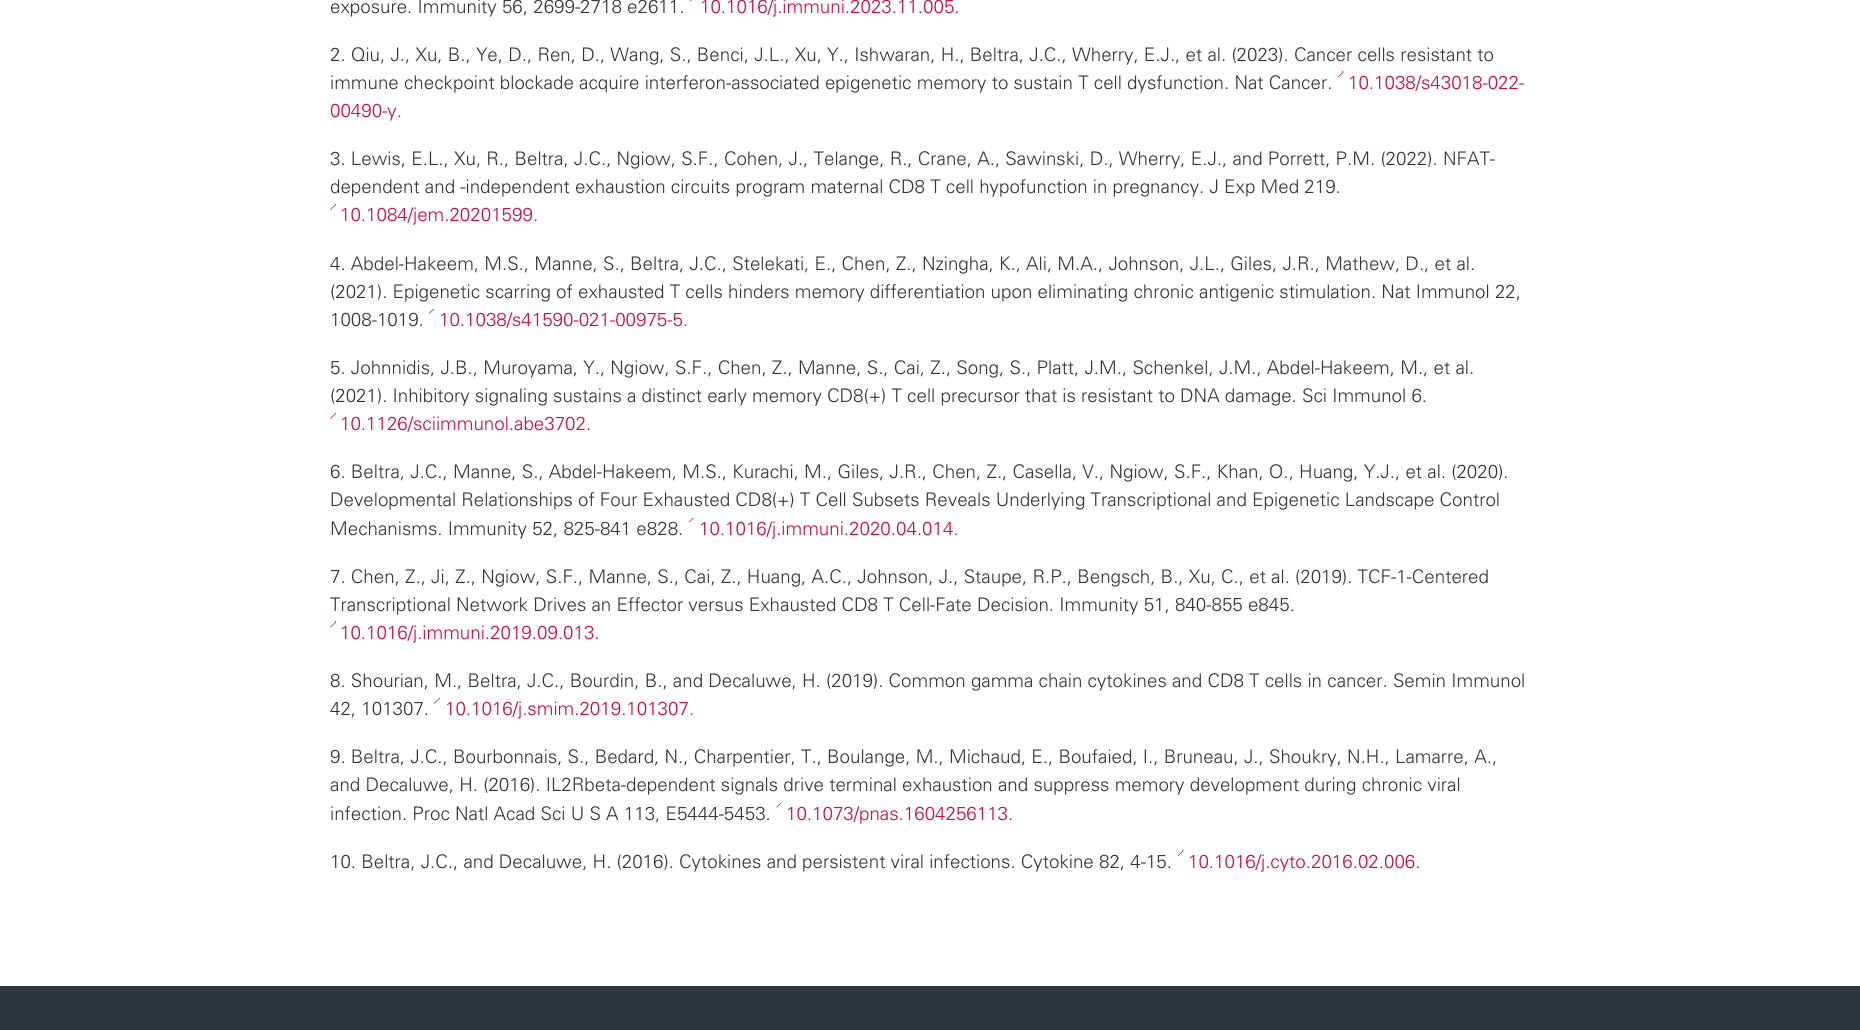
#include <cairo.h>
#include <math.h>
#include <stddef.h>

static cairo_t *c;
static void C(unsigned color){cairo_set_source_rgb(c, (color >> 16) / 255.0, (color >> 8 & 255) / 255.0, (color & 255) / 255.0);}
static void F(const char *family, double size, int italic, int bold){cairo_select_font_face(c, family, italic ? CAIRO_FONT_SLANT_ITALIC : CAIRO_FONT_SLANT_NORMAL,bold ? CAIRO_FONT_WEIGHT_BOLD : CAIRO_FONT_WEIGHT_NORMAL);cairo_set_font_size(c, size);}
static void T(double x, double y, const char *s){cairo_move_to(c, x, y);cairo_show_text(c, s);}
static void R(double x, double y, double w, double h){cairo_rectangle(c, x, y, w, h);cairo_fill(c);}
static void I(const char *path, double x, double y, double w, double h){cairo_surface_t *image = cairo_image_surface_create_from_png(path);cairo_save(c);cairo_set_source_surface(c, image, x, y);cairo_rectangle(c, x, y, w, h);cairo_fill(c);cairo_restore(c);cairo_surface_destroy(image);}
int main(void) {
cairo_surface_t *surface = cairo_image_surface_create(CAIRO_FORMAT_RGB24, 1860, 1030);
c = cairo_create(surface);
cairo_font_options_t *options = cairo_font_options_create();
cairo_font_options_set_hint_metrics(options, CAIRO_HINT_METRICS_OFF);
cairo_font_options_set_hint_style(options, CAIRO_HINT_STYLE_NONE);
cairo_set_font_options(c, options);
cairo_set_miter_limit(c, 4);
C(0xffffff);
cairo_paint(c);
F("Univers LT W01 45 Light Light",18.75,0,0);
C(0x333333);
T(330,13,"exposure. Immunity 56, 2699-2718 e2611.");
I("1.png",690,0,2,1);
C(0xd20537);
T(700,13,"10.1016/j.immuni.2023.11.005.");
C(0x333333);
T(330,61,"2. Qiu, J., Xu, B., Ye, D., Ren, D., Wang, S., Benci, J.L., Xu, Y., Ishwaran, H., Beltra, J.C., Wherry, E.J., et al. (2023). Cancer cells resistant to");
T(330,89,"immune checkpoint blockade acquire interferon-associated epigenetic memory to sustain T cell dysfunction. Nat Cancer.");
I("2.png",1338,71,6,7);
C(0xd20537);
T(1348,89,"10.1038/s43018-022-");
T(330,117,"00490-y.");
C(0x333333);
T(330,165,"3. Lewis, E.L., Xu, R., Beltra, J.C., Ngiow, S.F., Cohen, J., Telange, R., Crane, A., Sawinski, D., Wherry, E.J., and Porrett, P.M. (2022). NFAT-");
T(330,193,"dependent and -independent exhaustion circuits program maternal CD8 T cell hypofunction in pregnancy. J Exp Med 219.");
I("3.png",330,204,6,6);
C(0xd20537);
T(340,221,"10.1084/jem.20201599");
C(0x333333);
T(533,221,".");
T(330,270,"4. Abdel-Hakeem, M.S., Manne, S., Beltra, J.C., Stelekati, E., Chen, Z., Nzingha, K., Ali, M.A., Johnson, J.L., Giles, J.R., Mathew, D., et al.");
T(330,298,"(2021). Epigenetic scarring of exhausted T cells hinders memory differentiation upon eliminating chronic antigenic stimulation. Nat Immunol 22,");
I("4.png",429,309,6,5);
T(330,326,"1008-1019.");
C(0xd20537);
T(439,326,"10.1038/s41590-021-00975-5.");
C(0x333333);
T(330,374,"5. Johnnidis, J.B., Muroyama, Y., Ngiow, S.F., Chen, Z., Manne, S., Cai, Z., Song, S., Platt, J.M., Schenkel, J.M., Abdel-Hakeem, M., et al.");
T(330,402,"(2021). Inhibitory signaling sustains a distinct early memory CD8(+) T cell precursor that is resistant to DNA damage. Sci Immunol 6.");
I("5.png",330,413,6,6);
C(0xd20537);
T(340,430,"10.1126/sciimmunol.abe3702.");
C(0x333333);
T(330,478,"6. Beltra, J.C., Manne, S., Abdel-Hakeem, M.S., Kurachi, M., Giles, J.R., Chen, Z., Casella, V., Ngiow, S.F., Khan, O., Huang, Y.J., et al. (2020).");
T(330,506,"Developmental Relationships of Four Exhausted CD8(+) T Cell Subsets Reveals Underlying Transcriptional and Epigenetic Landscape Control");
I("6.png",689,518,5,5);
T(330,535,"Mechanisms. Immunity 52, 825-841 e828.");
C(0xd20537);
T(699,535,"10.1016/j.immuni.2020.04.014.");
C(0x333333);
T(330,583,"7. Chen, Z., Ji, Z., Ngiow, S.F., Manne, S., Cai, Z., Huang, A.C., Johnson, J., Staupe, R.P., Bengsch, B., Xu, C., et al. (2019). TCF-1-Centered");
T(330,611,"Transcriptional Network Drives an Effector versus Exhausted CD8 T Cell-Fate Decision. Immunity 51, 840-855 e845.");
I("7.png",330,621,6,7);
C(0xd20537);
T(340,639,"10.1016/j.immuni.2019.09.013.");
C(0x333333);
T(330,687,"8. Shourian, M., Beltra, J.C., Bourdin, B., and Decaluwe, H. (2019). Common gamma chain cytokines and CD8 T cells in cancer. Semin Immunol");
T(330,715,"42, 101307.");
I("8.png",434,698,6,6);
C(0xd20537);
T(445,715,"10.1016/j.smim.2019.101307.");
C(0x333333);
T(330,763,"9. Beltra, J.C., Bourbonnais, S., Bedard, N., Charpentier, T., Boulange, M., Michaud, E., Boufaied, I., Bruneau, J., Shoukry, N.H., Lamarre, A.,");
T(330,791,"and Decaluwe, H. (2016). IL2Rbeta-dependent signals drive terminal exhaustion and suppress memory development during chronic viral");
I("9.png",776,803,6,5);
T(330,820,"infection. Proc Natl Acad Sci U S A 113, E5444-5453.");
C(0xd20537);
T(786,820,"10.1073/pnas.1604256113.");
I("10.png",1178,850,6,6);
C(0x333333);
T(330,868,"10. Beltra, J.C., and Decaluwe, H. (2016). Cytokines and persistent viral infections. Cytokine 82, 4-15.");
C(0xd20537);
T(1188,868,"10.1016/j.cyto.2016.02.006.");
C(0x2d373c);
R(0,986,1860,44);
cairo_surface_write_to_png(surface, "o.png");
cairo_font_options_destroy(options);
cairo_destroy(c);
cairo_surface_destroy(surface);
return 0;
}
